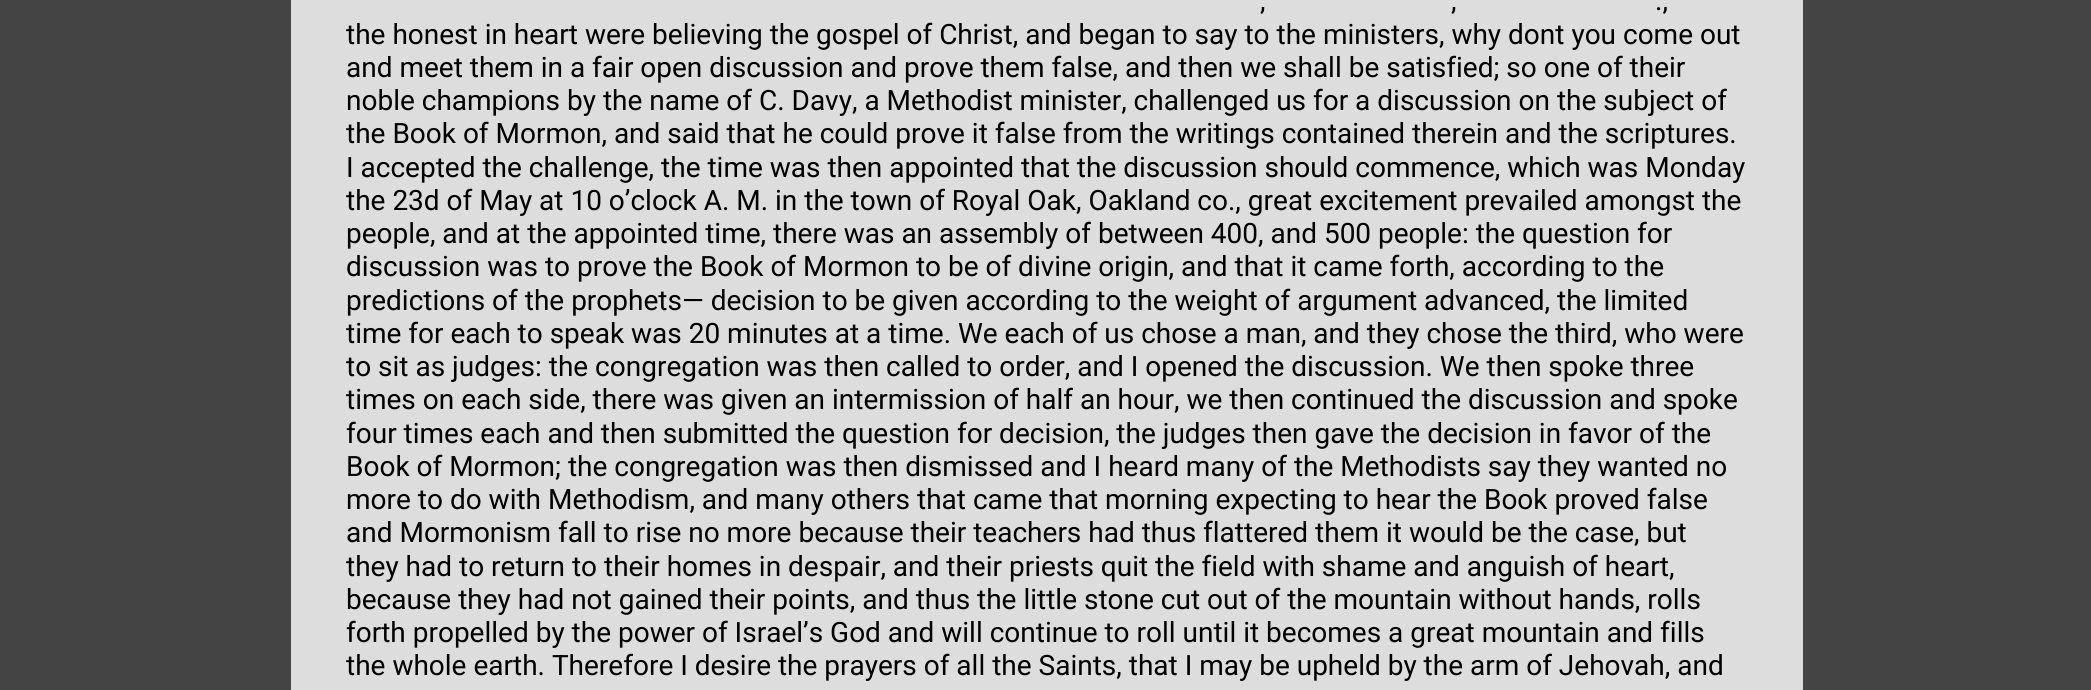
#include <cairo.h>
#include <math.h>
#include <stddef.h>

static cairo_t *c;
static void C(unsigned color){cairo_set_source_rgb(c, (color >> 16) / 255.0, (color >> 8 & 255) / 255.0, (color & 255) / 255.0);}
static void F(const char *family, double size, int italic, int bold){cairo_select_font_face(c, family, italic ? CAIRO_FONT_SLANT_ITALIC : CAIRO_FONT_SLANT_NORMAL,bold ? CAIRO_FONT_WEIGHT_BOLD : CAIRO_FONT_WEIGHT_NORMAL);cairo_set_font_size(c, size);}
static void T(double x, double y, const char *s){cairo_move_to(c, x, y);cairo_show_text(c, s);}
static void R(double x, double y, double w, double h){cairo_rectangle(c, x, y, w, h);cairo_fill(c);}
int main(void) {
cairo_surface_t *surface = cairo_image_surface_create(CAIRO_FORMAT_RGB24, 2091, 690);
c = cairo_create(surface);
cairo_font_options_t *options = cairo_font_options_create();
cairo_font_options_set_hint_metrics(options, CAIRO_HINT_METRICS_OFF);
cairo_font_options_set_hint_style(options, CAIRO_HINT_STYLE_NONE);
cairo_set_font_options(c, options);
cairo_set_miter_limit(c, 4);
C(0x444444);
cairo_paint(c);
C(0xdddddd);
R(291,0,1512,690);
F("Roboto",28,0,0);
C(0x000000);
T(1260,10,",");
T(1451,10,",");
T(1655,10,".,");
T(346,44,"the honest in heart were believing the gospel of Christ, and began to say to the ministers, why dont you come out");
T(346,77,"and meet them in a fair open discussion and prove them false, and then we shall be satisfied; so one of their");
T(346,110,"noble champions by the name of C. Davy, a Methodist minister, challenged us for a discussion on the subject of");
T(346,143,"the Book of Mormon, and said that he could prove it false from the writings contained therein and the scriptures.");
T(346,177,"I accepted the challenge, the time was then appointed that the discussion should commence, which was Monday");
T(346,210,"the 23d of May at 10 o’clock A. M. in the town of Royal Oak, Oakland co., great excitement prevailed amongst the");
T(346,243,"people, and at the appointed time, there was an assembly of between 400, and 500 people: the question for");
T(346,276,"discussion was to prove the Book of Mormon to be of divine origin, and that it came forth, according to the");
T(346,310,"predictions of the prophets— decision to be given according to the weight of argument advanced, the limited");
T(346,343,"time for each to speak was 20 minutes at a time. We each of us chose a man, and they chose the third, who were");
T(346,376,"to sit as judges: the congregation was then called to order, and I opened the discussion. We then spoke three");
T(346,409,"times on each side, there was given an intermission of half an hour, we then continued the discussion and spoke");
T(346,443,"four times each and then submitted the question for decision, the judges then gave the decision in favor of the");
T(346,476,"Book of Mormon; the congregation was then dismissed and I heard many of the Methodists say they wanted no");
T(346,509,"more to do with Methodism, and many others that came that morning expecting to hear the Book proved false");
T(346,542,"and Mormonism fall to rise no more because their teachers had thus flattered them it would be the case, but");
T(346,576,"they had to return to their homes in despair, and their priests quit the field with shame and anguish of heart,");
T(346,609,"because they had not gained their points, and thus the little stone cut out of the mountain without hands, rolls");
T(346,642,"forth propelled by the power of Israel’s God and will continue to roll until it becomes a great mountain and fills");
T(346,675,"the whole earth. Therefore I desire the prayers of all the Saints, that I may be upheld by the arm of Jehovah, and");
cairo_surface_write_to_png(surface, "o.png");
cairo_font_options_destroy(options);
cairo_destroy(c);
cairo_surface_destroy(surface);
return 0;
}
